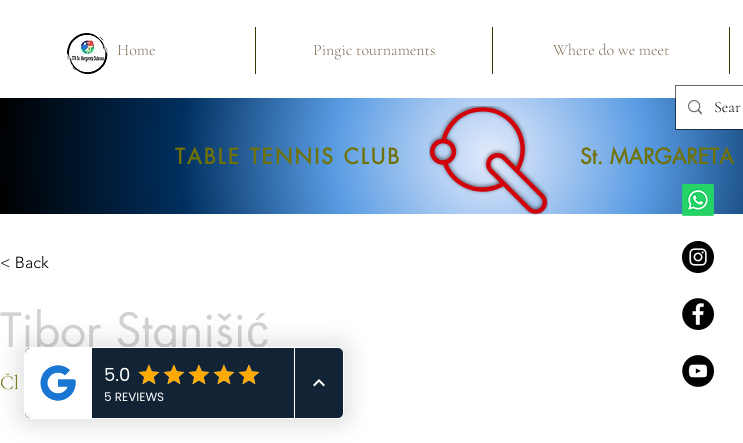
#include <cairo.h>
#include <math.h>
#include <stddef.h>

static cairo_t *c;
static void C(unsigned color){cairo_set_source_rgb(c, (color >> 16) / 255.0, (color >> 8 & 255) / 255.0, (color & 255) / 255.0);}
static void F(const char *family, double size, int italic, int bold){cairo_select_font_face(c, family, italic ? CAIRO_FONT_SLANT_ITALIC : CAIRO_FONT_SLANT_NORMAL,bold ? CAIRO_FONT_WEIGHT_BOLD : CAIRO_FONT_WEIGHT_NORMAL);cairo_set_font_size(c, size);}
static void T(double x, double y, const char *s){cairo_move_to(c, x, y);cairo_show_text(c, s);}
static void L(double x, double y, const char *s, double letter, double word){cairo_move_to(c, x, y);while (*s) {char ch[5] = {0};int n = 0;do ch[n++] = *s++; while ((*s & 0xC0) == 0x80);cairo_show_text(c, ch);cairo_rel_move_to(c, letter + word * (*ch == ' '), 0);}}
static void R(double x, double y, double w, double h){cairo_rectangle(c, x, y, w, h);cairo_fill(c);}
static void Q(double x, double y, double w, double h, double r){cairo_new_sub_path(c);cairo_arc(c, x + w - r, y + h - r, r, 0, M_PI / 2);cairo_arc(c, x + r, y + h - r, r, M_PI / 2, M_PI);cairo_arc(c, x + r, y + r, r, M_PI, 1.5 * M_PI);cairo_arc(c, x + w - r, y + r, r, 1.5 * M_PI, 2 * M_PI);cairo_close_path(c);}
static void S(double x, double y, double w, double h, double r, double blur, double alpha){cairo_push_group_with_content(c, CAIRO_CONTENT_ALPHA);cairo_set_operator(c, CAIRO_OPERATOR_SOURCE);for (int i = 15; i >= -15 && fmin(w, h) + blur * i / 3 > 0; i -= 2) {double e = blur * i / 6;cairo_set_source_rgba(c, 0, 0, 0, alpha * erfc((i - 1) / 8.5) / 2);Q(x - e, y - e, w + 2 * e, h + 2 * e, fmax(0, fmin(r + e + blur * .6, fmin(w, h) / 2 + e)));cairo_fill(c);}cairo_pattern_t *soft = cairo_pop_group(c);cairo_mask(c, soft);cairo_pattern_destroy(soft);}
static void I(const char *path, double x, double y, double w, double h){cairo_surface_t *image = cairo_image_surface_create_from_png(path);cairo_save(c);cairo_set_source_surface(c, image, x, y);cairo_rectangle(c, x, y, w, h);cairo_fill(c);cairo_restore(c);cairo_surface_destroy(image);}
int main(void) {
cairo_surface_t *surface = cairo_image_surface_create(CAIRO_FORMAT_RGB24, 743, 443);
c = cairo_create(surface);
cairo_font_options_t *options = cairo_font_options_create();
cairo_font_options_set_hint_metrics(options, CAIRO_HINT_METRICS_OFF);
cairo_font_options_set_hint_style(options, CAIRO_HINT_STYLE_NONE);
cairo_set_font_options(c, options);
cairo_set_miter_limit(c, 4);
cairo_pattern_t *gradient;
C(0xffffff);
cairo_paint(c);
I("1.png",67,33,41,41);
F("Cormorant Garamond Light",16,0,0);
C(0x7d6b55);
T(117,55,"Home");
C(0x383902);
R(255,27,1,47);
C(0x7d6b55);
T(313,55,"Pingic tournaments");
C(0x383902);
R(492,27,1,47);
C(0x7d6b55);
T(553,55,"Where do we meet");
C(0x383902);
R(729,27,1,47);
gradient = cairo_pattern_create_radial(490,156,0,490,156,493);
cairo_pattern_add_color_stop_rgba(gradient,0,0.894,0.922,0.988,1);
cairo_pattern_add_color_stop_rgba(gradient,.32,0.345,0.608,0.89,1);
cairo_pattern_add_color_stop_rgba(gradient,.63,0,0.184,0.369,1);
cairo_pattern_add_color_stop_rgba(gradient,1,0,0,0,1);
cairo_set_source(c,gradient);
cairo_pattern_destroy(gradient);
R(0,98,743,116);
cairo_rectangle(c,675.5,85.5,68,44);
cairo_set_source_rgba(c,0,0,0,0.6);
cairo_set_line_width(c,1);
cairo_stroke(c);
C(0xffffff);
R(676,98,67,31);
I("2.png",688,100,14,15);
C(0x000000);
T(714,112,"Sear");
F("futura",21,0,1);
C(0x717205);
L(175,164,"TABLE TENNIS CLUB",2.1,0);
I("3.png",429,106,119,109);
T(580,164,"St. MARGARETA");
F("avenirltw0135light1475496 Light",16,0,0);
C(0x000000);
T(0,268,"< Back");
F("futura",46,0,0);
C(0xd2d2d2);
T(0,347,"Tibor Staniši");
F("Liberation Sans",46,0,0);
T(246,347,"ć");
F("Cormorant Garamond Light",20,0,0);
C(0x717205);
T(0,389,"Čl");
I("4.png",682,184,32,32);
I("5.png",682,241,32,32);
I("6.png",682,298,32,32);
I("7.png",682,355,32,32);
C(0x000000);
S(18,341,332,84,12,12,.12);
C(0x112334);
Q(24.5,347.5,319,71,5.5);
cairo_fill_preserve(c);
C(0xffffff);
cairo_stroke(c);
cairo_new_path(c);
cairo_move_to(c,31,348);
cairo_line_to(c,92,348);
cairo_line_to(c,92,418);
cairo_line_to(c,31,418);
cairo_curve_to(c,27.5,418,25,415.5,25,412);
cairo_line_to(c,25,354);
cairo_curve_to(c,25,350.5,27.5,348,31,348);
cairo_close_path(c);
cairo_fill(c);
I("8.png",40,365,36,36);
R(294,348,1,70);
F("Poppins",18,0,0);
T(104,381,"5.0");
I("9.png",138,364,22,21);
I("10.png",138,364,22,21);
I("9.png",163,364,22,21);
I("10.png",163,364,22,21);
I("9.png",188,364,22,21);
I("10.png",188,364,22,21);
I("9.png",213,364,22,21);
I("10.png",213,364,22,21);
I("9.png",238,364,22,21);
I("10.png",238,364,22,21);
F("Poppins",12,0,0);
T(104,401,"5 REVIEWS");
I("11.png",313,379,12,8);
cairo_surface_write_to_png(surface, "o.png");
cairo_font_options_destroy(options);
cairo_destroy(c);
cairo_surface_destroy(surface);
return 0;
}
